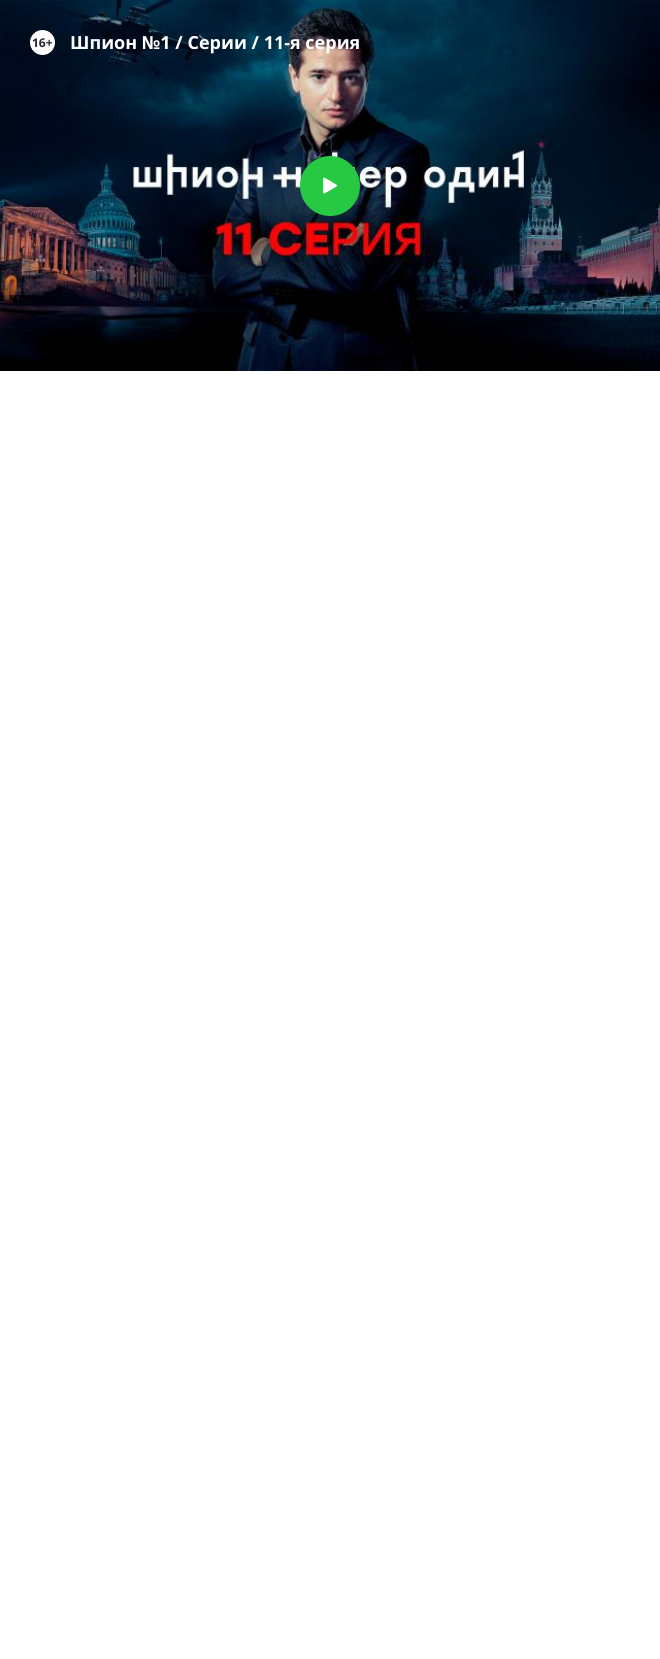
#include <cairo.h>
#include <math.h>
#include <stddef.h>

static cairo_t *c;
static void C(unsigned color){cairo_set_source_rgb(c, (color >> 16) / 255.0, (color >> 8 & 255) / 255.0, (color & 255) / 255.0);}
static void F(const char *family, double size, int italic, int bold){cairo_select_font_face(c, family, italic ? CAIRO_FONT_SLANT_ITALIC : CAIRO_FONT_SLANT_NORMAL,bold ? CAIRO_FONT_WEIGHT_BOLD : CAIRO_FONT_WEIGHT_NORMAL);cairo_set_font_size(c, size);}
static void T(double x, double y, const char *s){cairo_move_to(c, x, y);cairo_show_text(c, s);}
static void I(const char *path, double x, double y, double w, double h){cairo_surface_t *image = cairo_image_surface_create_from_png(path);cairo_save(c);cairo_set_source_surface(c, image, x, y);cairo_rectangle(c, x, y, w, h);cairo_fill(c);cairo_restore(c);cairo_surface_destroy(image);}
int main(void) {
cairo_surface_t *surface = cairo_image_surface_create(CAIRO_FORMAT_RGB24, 660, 1659);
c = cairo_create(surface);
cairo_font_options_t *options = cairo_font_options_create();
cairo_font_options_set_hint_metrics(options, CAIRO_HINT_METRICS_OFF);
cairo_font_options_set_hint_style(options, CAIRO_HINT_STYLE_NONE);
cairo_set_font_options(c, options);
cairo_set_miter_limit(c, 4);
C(0xffffff);
cairo_paint(c);
I("1.png",0,0,660,371);
C(0xffffff);
cairo_arc(c,42.5,42.5,12.5,0,2 * M_PI);
cairo_fill(c);
F("Open Sans",12,0,1);
C(0x252832);
T(32,47,"16+");
F("Open Sans",18,0,1);
C(0xffffff);
T(70,49,"Шпион №1 / Серии / 11-я серия");
C(0x27c942);
cairo_new_path(c);
cairo_arc(c,330,186,30,0,2 * M_PI);
cairo_fill(c);
I("2.png",323,177,14,17);
cairo_surface_write_to_png(surface, "o.png");
cairo_font_options_destroy(options);
cairo_destroy(c);
cairo_surface_destroy(surface);
return 0;
}
